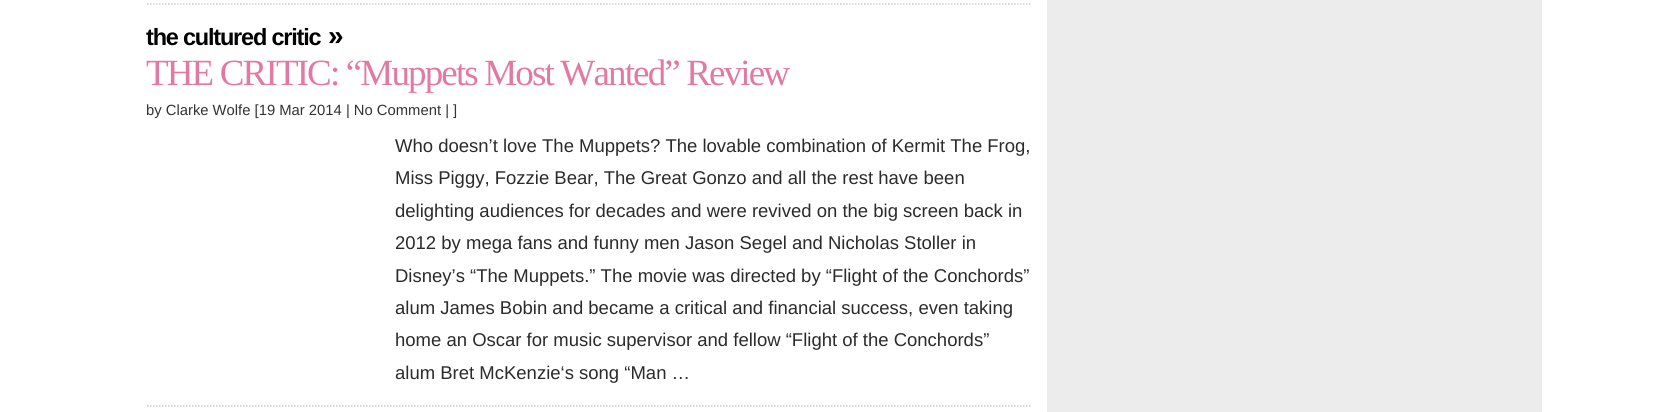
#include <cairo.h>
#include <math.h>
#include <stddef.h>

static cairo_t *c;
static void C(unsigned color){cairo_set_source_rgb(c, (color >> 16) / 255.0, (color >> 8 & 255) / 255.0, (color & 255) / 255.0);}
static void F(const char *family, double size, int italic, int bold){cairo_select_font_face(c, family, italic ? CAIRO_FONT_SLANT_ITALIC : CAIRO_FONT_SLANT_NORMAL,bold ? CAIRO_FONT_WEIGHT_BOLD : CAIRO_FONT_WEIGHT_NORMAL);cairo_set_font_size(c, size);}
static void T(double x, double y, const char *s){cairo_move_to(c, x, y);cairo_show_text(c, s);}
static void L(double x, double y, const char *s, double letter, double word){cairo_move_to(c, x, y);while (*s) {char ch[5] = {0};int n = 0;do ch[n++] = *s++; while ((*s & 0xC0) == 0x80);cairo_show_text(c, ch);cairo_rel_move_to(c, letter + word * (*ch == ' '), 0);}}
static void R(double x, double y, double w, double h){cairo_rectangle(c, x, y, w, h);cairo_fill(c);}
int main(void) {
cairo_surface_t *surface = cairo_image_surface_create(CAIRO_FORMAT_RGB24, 1672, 412);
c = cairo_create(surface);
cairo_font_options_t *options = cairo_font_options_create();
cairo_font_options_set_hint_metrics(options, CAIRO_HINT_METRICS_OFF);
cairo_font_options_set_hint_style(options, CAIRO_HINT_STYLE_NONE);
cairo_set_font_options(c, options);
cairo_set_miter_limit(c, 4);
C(0xffffff);
cairo_paint(c);
C(0xececec);
R(1047,0,495,412);
cairo_new_path(c);
cairo_move_to(c,147,4);
cairo_line_to(c,1032,4);
C(0xcccccc);
cairo_set_line_width(c,1.5);
cairo_set_dash(c,(double[]){1.5,1.5},2,0);
cairo_stroke(c);
cairo_new_path(c);
cairo_move_to(c,147,406);
cairo_line_to(c,1032,406);
cairo_stroke(c);
F("Liberation Sans",23.5,0,1);
C(0x000000);
L(146,45,"the cultured critic",-1.2,0);
F("Liberation Sans",28,0,1);
L(328,45,"»",-1,0);
F("Liberation Serif",37,0,0);
C(0xe179a3);
L(146,85,"THE CRITIC: “Muppets Most Wanted” Review",-1.85,0);
F("Liberation Sans",14.8,0,0);
C(0x333333);
T(146,115,"by Clarke Wolfe [19 Mar 2014 | No Comment | ]");
F("Liberation Sans",18.5,0,0);
C(0x2b2b2b);
T(395,152,"Who doesn’t love The Muppets? The lovable combination of Kermit The Frog,");
T(395,184,"Miss Piggy, Fozzie Bear, The Great Gonzo and all the rest have been");
T(395,217,"delighting audiences for decades and were revived on the big screen back in");
T(395,249,"2012 by mega fans and funny men Jason Segel and Nicholas Stoller in");
T(395,282,"Disney’s “The Muppets.” The movie was directed by “Flight of the Conchords”");
T(395,314,"alum James Bobin and became a critical and financial success, even taking");
T(395,346,"home an Oscar for music supervisor and fellow “Flight of the Conchords”");
T(395,379,"alum Bret McKenzie‘s song “Man …");
cairo_surface_write_to_png(surface, "o.png");
cairo_font_options_destroy(options);
cairo_destroy(c);
cairo_surface_destroy(surface);
return 0;
}
